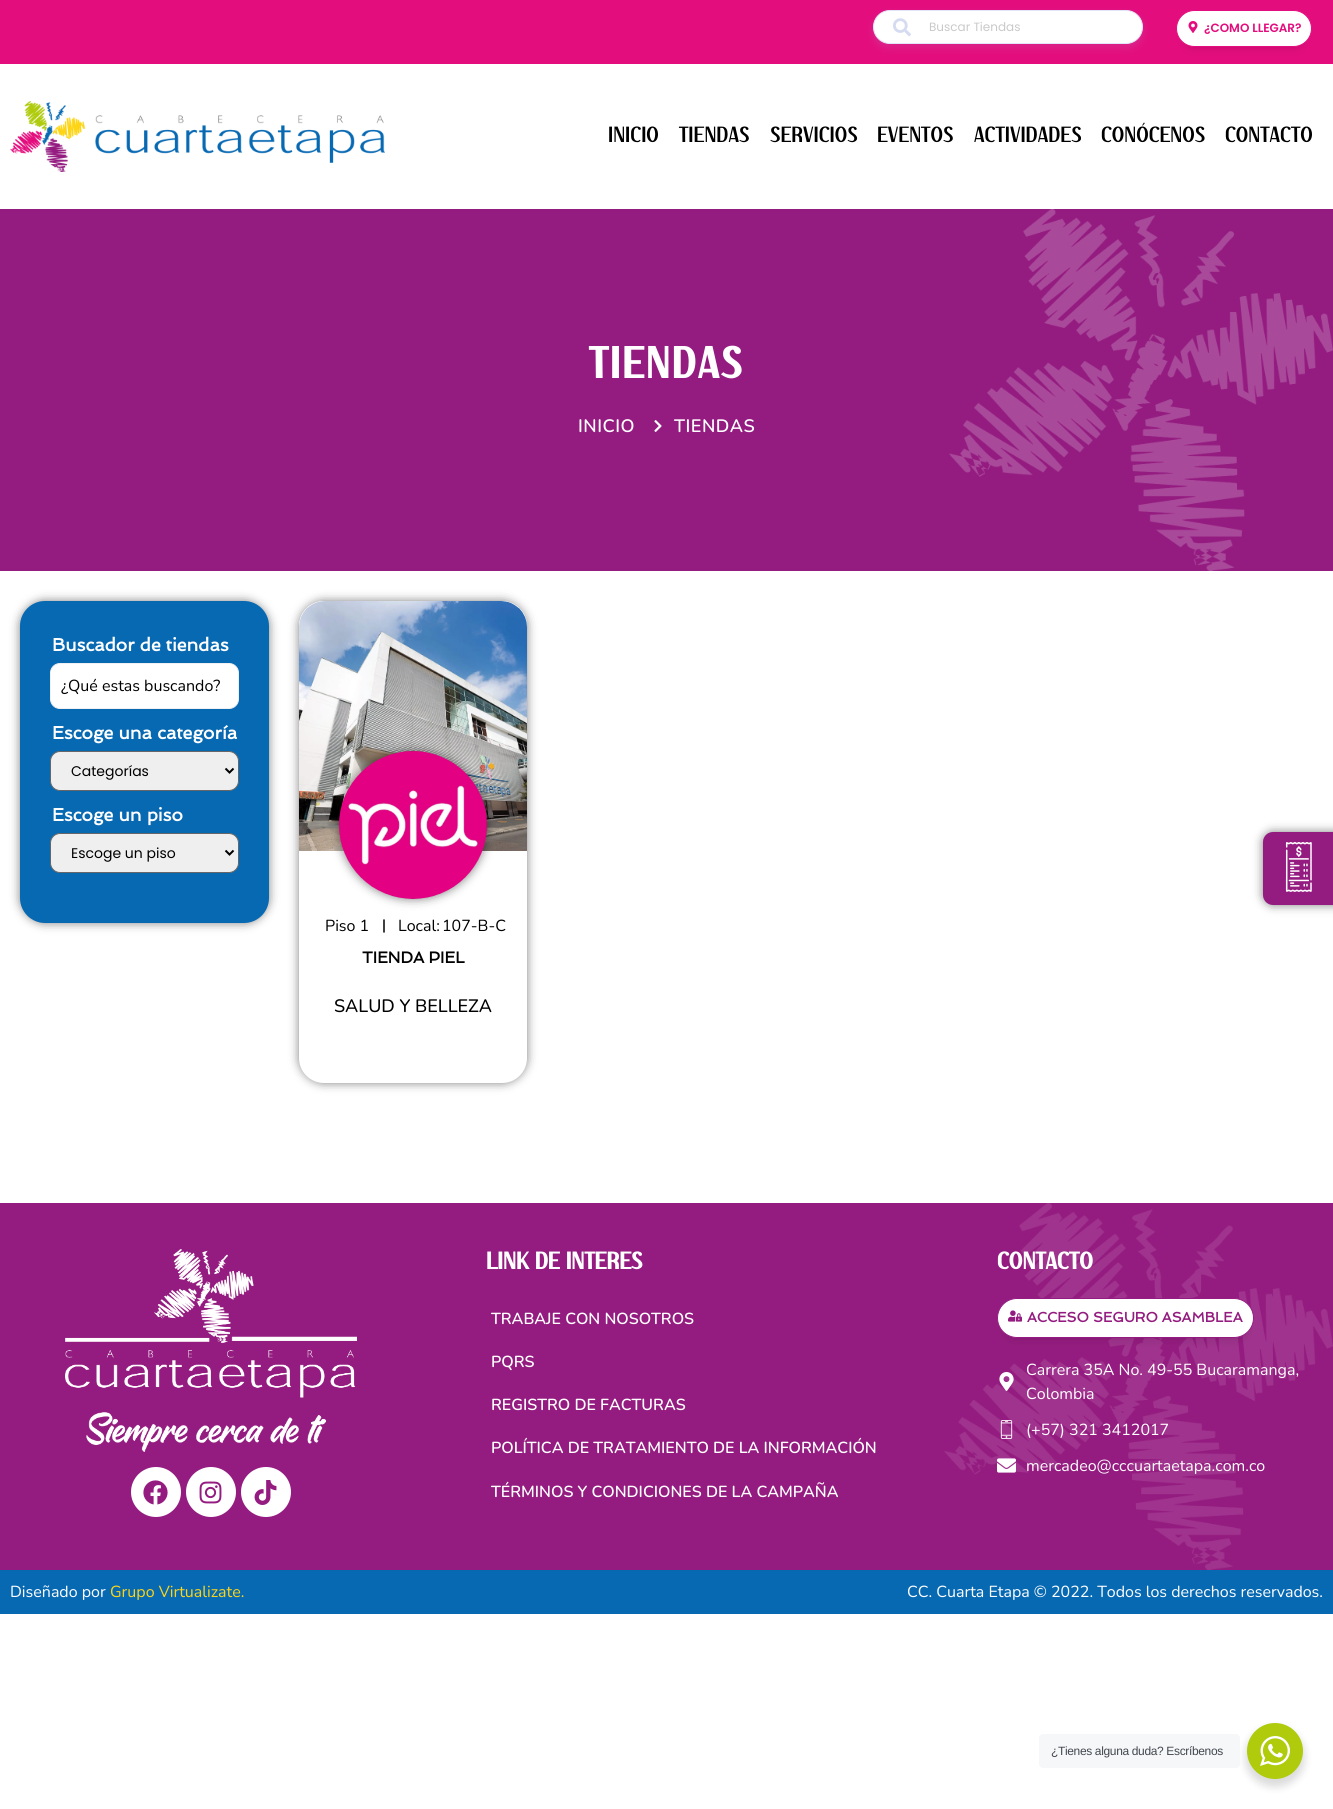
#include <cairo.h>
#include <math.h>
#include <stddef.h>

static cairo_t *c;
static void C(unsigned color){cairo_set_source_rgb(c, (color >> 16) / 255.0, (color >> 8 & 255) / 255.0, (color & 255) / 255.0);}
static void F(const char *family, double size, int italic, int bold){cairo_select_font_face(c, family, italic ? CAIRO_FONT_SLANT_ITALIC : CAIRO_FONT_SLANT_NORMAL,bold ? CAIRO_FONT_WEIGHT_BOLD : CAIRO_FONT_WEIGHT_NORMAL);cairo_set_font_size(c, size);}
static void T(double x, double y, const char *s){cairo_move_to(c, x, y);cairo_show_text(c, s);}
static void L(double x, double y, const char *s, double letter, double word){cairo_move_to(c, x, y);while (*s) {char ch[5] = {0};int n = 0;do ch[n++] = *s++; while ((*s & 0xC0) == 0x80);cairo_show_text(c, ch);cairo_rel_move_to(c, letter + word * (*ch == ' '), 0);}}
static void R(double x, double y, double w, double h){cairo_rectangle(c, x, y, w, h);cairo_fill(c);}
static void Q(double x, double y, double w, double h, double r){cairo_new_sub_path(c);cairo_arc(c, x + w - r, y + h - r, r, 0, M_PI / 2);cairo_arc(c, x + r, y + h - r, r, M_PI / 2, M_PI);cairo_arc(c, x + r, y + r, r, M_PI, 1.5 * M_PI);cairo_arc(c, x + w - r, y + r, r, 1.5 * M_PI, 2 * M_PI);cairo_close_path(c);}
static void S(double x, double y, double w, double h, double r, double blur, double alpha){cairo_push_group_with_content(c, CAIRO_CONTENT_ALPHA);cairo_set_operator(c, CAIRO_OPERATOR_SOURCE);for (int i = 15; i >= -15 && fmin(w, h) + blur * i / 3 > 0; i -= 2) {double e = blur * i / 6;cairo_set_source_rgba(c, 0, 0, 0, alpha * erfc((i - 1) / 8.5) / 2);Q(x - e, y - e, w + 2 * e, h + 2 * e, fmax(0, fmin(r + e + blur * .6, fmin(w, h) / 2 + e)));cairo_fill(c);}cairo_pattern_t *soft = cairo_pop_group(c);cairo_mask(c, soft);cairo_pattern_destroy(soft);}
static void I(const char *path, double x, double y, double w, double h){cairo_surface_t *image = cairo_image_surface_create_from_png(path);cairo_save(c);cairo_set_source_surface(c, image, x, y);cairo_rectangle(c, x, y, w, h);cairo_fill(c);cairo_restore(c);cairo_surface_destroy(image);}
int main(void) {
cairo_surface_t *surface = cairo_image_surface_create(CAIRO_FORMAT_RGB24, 1333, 1809);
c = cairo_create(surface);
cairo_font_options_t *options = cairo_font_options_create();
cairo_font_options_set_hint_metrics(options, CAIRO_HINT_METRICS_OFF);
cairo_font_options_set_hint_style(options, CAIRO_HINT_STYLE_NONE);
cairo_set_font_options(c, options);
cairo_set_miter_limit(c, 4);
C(0xffffff);
cairo_paint(c);
C(0xe30d7d);
R(0,0,1333,64);
C(0xa5aed5);
S(873,14,270,34,17,4,.15);
C(0xffffff);
Q(873.5,10.5,269,33,16.5);
cairo_fill_preserve(c);
C(0xe0e5f8);
cairo_set_line_width(c,1);
cairo_stroke(c);
I("1.png",893,18,18,19);
F("Poppins",12,0,0);
C(0xc9c9c9);
T(929,31,"Buscar Tiendas");
C(0x000000);
S(1186,30,116,17,8.5,5,.15);
C(0xffffff);
Q(1176.5,10.5,135,36,18);
cairo_fill_preserve(c);
C(0xe30d7d);
cairo_stroke(c);
I("2.png",1188,21,10,12);
F("Poppins SemiBold",12,0,0);
T(1204,32,"¿COMO LLEGAR?");
I("3.png",10,101,375,71);
F("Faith",22,0,0);
C(0x000000);
T(608,142,"INICIO");
T(679,142,"TIENDAS");
T(770,142,"SERVICIOS");
T(877,142,"EVENTOS");
T(974,142,"ACTIVIDADES");
T(1101,142,"CONÓCENOS");
T(1225,142,"CONTACTO");
C(0x941c81);
R(0,209,1333,362);
F("Faith",44,0,1);
C(0xffffff);
L(589,378,"TIENDAS",2,0);
F("Nunito SemiBold",18,0,0);
L(578,432,"INICIO",.5,0);
I("4.png",654,420,8,12);
L(674,432,"TIENDAS",.5,0);
I("5.png",949,209,384,362);
C(0x000000);
S(20,601,249,322,25,5,.5);
C(0x0869b3);
Q(20,601,249,322,25);
cairo_fill(c);
F("Spinnaker",18,0,1);
C(0xffffff);
T(52,651,"Buscador de tiendas");
Q(50.5,663.5,188,45,9.5);
cairo_fill_preserve(c);
C(0xf0f0f0);
cairo_stroke(c);
F("Nunito",16,0,0);
C(0x000000);
T(61,691,"¿Qué estas buscando?");
F("Spinnaker",18,0,1);
C(0xffffff);
T(52,739,"Escoge una categoría");
C(0xefefef);
Q(50.5,751.5,188,39,9.5);
cairo_fill_preserve(c);
C(0x666666);
cairo_stroke(c);
cairo_new_path(c);
cairo_move_to(c,225.5,768.5);
cairo_line_to(c,229.5,772.5);
cairo_line_to(c,233.5,768.5);
C(0x000000);
cairo_set_line_width(c,2);
cairo_stroke(c);
F("Poppins",14,0,0);
T(71,776,"Categorías");
F("Spinnaker",18,0,1);
C(0xffffff);
T(52,821,"Escoge un piso");
C(0xefefef);
Q(50.5,833.5,188,39,9.5);
cairo_fill_preserve(c);
C(0x666666);
cairo_set_line_width(c,1);
cairo_stroke(c);
cairo_new_path(c);
cairo_move_to(c,225.5,850.5);
cairo_line_to(c,229.5,854.5);
cairo_line_to(c,233.5,850.5);
C(0x000000);
cairo_set_line_width(c,2);
cairo_stroke(c);
F("Poppins",14,0,0);
T(71,858,"Escoge un piso");
C(0x000000);
S(299,601,228,482,25,5,.5);
C(0xffffff);
Q(299,601,228,482,25);
cairo_fill(c);
Q(299,601,228,462,26);
cairo_fill(c);
I("6.png",299,601,228,250);
C(0x000000);
S(339,751,148,148,74,5,.5);
I("7.png",339,751,148,148);
F("Nunito",16,0,0);
C(0x000000);
T(325,931,"Piso 1");
cairo_new_path(c);
cairo_move_to(c,384,920);
cairo_line_to(c,384,932);
cairo_set_line_width(c,1.5);
cairo_set_line_cap(c,CAIRO_LINE_CAP_ROUND);
cairo_set_line_join(c,CAIRO_LINE_JOIN_ROUND);
cairo_stroke(c);
T(398,931,"Local:");
T(442,931,"107-B-C");
F("Spinnaker",16,0,1);
T(362,963,"TIENDA PIEL");
F("Nunito Medium",18,0,0);
T(334,1012,"SALUD Y BELLEZA");
C(0x000000);
S(1263,832,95,73,10,5,.5);
C(0x941c81);
Q(1263,832,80,73,10);
cairo_fill(c);
I("8.png",1285,842,27,50);
C(0x941c80);
R(0,1203,1333,367);
I("9.png",944,1203,389,367);
I("10.png",65,1249,292,203);
C(0xffffff);
cairo_arc(c,156,1492,25,0,2 * M_PI);
cairo_fill(c);
I("11.png",143,1480,25,25);
cairo_arc(c,211,1492,25,0,2 * M_PI);
cairo_fill(c);
I("12.png",199,1481,23,23);
cairo_arc(c,266,1492,25,0,2 * M_PI);
cairo_fill(c);
I("13.png",254,1480,23,25);
F("Faith",24,0,1);
T(486,1269,"LINK DE INTERES");
F("Nunito SemiBold",16,0,0);
T(491,1324,"TRABAJE CON NOSOTROS");
T(491,1367,"PQRS");
T(491,1410,"REGISTRO DE FACTURAS");
T(491,1453,"POLÍTICA DE TRATAMIENTO DE LA INFORMACIÓN");
T(491,1497,"TÉRMINOS Y CONDICIONES DE LA CAMPAÑA");
F("Faith",24,0,1);
T(997,1269,"CONTACTO");
C(0x000000);
S(1007,1318,237,20,10,5,.15);
C(0xffffff);
Q(997.5,1298.5,256,39,19.5);
cairo_fill_preserve(c);
C(0x941c80);
cairo_set_line_width(c,1);
cairo_set_line_cap(c,CAIRO_LINE_CAP_BUTT);
cairo_set_line_join(c,CAIRO_LINE_JOIN_MITER);
cairo_stroke(c);
I("14.png",1008,1310,14,12);
F("Spinnaker",14,0,1);
T(1027,1322,"ACCESO SEGURO ASAMBLEA");
I("15.png",999,1372,15,19);
F("Nunito",16,0,0);
C(0xffffff);
T(1026,1375,"Carrera 35A No. 49-55 Bucaramanga,");
T(1026,1399,"Colombia");
I("16.png",1000,1420,13,19);
T(1026,1435,"(+57) 321 3412017");
I("17.png",997,1458,19,15);
T(1026,1471,"mercadeo@cccuartaetapa.com.co");
C(0x0869b3);
R(0,1570,1333,44);
C(0xffffff);
T(10,1597,"Diseñado por");
C(0xfdd516);
T(110,1597,"Grupo Virtualizate.");
C(0xffffff);
T(907,1597,"CC. Cuarta Etapa © 2022. Todos los derechos reservados.");
C(0x000000);
S(1245,1727,60,60,30,4,.14);
C(0xf5f7f9);
Q(1039,1734,201,34,4);
cairo_fill(c);
F("Liberation Sans",12,0,0);
C(0x43474e);
L(1051,1755,"¿Tienes alguna duda? Escríbenos",-.35,0);
C(0xafcb0c);
cairo_new_path(c);
cairo_arc(c,1275,1751,28,0,2 * M_PI);
cairo_fill(c);
I("18.png",1260,1736,30,30);
cairo_surface_write_to_png(surface, "o.png");
cairo_font_options_destroy(options);
cairo_destroy(c);
cairo_surface_destroy(surface);
return 0;
}
